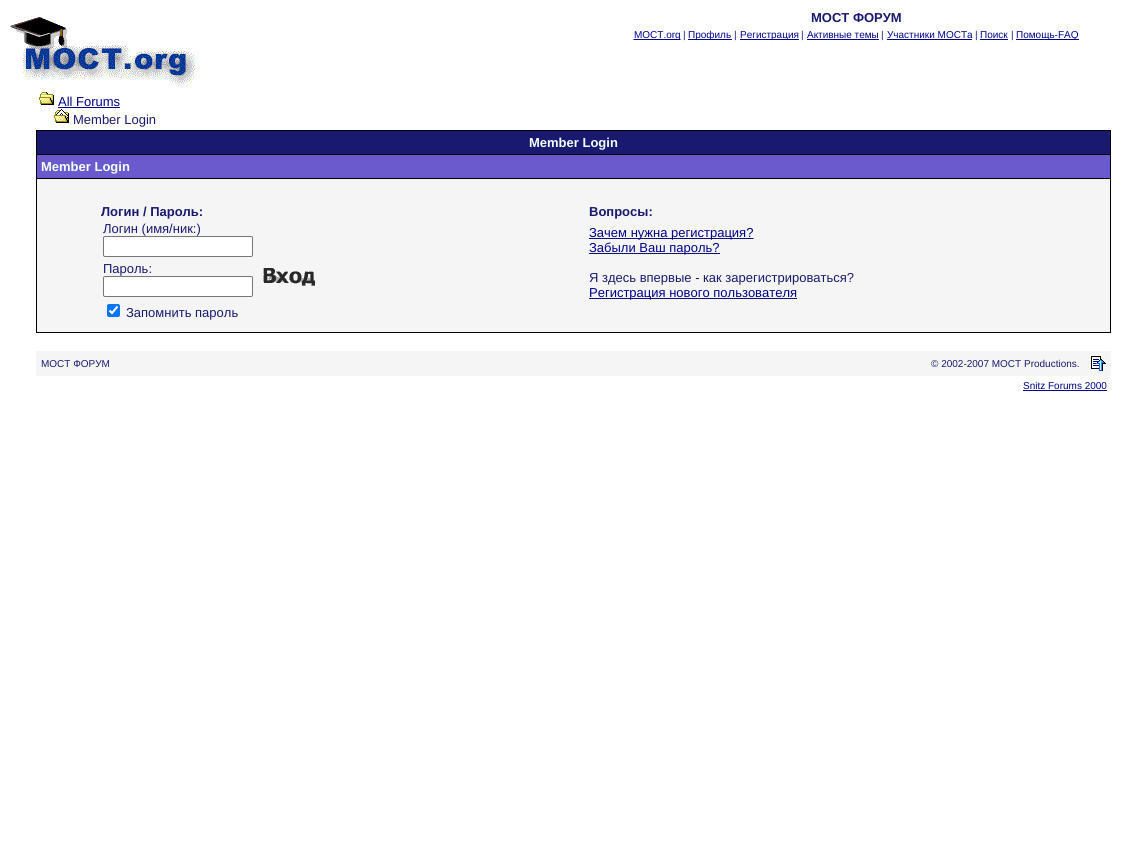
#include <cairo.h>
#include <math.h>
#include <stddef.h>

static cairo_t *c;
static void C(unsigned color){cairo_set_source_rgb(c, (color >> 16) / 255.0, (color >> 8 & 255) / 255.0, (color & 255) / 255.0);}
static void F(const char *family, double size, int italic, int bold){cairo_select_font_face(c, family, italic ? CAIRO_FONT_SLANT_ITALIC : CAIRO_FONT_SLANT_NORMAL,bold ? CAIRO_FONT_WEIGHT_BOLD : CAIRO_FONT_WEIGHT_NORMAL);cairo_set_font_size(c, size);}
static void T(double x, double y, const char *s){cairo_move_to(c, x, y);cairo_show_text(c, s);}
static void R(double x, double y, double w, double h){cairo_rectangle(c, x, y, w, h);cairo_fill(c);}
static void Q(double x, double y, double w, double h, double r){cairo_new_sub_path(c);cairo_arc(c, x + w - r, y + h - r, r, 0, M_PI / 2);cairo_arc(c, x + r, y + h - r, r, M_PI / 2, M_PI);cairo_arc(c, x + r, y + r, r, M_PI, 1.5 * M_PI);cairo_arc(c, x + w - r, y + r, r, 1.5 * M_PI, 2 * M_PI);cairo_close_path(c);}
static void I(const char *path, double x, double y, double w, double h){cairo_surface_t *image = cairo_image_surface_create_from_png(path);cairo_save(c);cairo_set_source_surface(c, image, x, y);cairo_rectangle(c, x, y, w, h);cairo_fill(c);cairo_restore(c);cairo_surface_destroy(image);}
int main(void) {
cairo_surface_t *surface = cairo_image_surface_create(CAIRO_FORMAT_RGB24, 1147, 848);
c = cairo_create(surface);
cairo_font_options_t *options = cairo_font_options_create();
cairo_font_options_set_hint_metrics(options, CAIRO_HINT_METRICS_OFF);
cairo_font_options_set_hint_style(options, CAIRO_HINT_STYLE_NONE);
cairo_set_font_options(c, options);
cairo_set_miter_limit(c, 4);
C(0xffffff);
cairo_paint(c);
I("1.png",10,17,185,68);
F("Liberation Sans",13,0,1);
C(0x191970);
T(811,22,"MOCT ФОРУМ");
cairo_new_path(c);
cairo_move_to(c,633.5,39.5);
cairo_line_to(c,680.5,39.5);
C(0x00008b);
cairo_set_line_width(c,1);
cairo_set_dash(c,(double[]){1,1},2,0);
cairo_stroke(c);
R(634,39,46,1);
F("Liberation Sans",10,0,0);
T(634,38,"MOCT.org");
C(0x191970);
T(683,38,"|");
C(0x00008b);
R(688,39,44,1);
T(688,38,"Профиль");
C(0x191970);
T(734,38,"|");
C(0x00008b);
R(740,39,59,1);
T(740,38,"Регистрация");
C(0x191970);
T(801,38,"|");
C(0x00008b);
T(807,38,"Активные темы");
R(807,39,72,1);
C(0x191970);
T(881,38,"|");
C(0x00008b);
T(887,38,"Участники МОСТа");
R(887,39,85,1);
C(0x191970);
T(975,38,"|");
C(0x00008b);
T(980,38,"Поиск");
R(980,39,28,1);
C(0x191970);
T(1011,38,"|");
C(0x00008b);
R(1016,39,63,1);
T(1016,38,"Помощь-FAQ");
I("2.png",39,92,15,13);
F("Liberation Sans",13,0,0);
T(58,106,"All Forums");
R(58,107,62,1);
I("3.png",54,109,15,14);
C(0x191970);
T(73,124,"Member Login");
C(0x000000);
R(36,130,1075,203);
C(0x191970);
R(37,131,1073,23);
F("Liberation Sans",13,0,1);
C(0xf5fffa);
T(529,147,"Member Login");
C(0x6a5acd);
R(37,155,1073,23);
C(0xf5fffa);
T(41,171,"Member Login");
C(0xf5f5f5);
R(37,179,1073,153);
C(0x191970);
T(101,216,"Логин / Пароль:");
F("Liberation Sans",13,0,0);
T(103,233,"Логин (имя/ник:)");
C(0xffffff);
Q(103.5,236.5,149,20,1.5);
cairo_fill_preserve(c);
C(0x767676);
cairo_set_dash(c,NULL,0,0);
cairo_stroke(c);
I("4.png",263,268,52,18);
C(0x191970);
T(103,273,"Пароль:");
C(0xffffff);
Q(103.5,276.5,149,20,1.5);
cairo_fill_preserve(c);
C(0x767676);
cairo_stroke(c);
C(0x0075ff);
Q(107,304,13,13,2);
cairo_fill(c);
cairo_new_path(c);
cairo_move_to(c,109.5,310.5);
cairo_line_to(c,112,313);
cairo_line_to(c,117.5,306.5);
C(0xffffff);
cairo_set_line_width(c,2.1);
cairo_stroke(c);
C(0x191970);
T(126,317,"Запомнить пароль");
F("Liberation Sans",13,0,1);
T(589,216,"Вопросы:");
C(0x00008b);
R(589,238,164,1);
cairo_new_path(c);
cairo_move_to(c,589,238.5);
cairo_line_to(c,753.5,238.5);
C(0x191970);
cairo_set_line_width(c,1);
cairo_set_dash(c,(double[]){1,1},2,0);
cairo_stroke(c);
F("Liberation Sans",13,0,0);
C(0x00008b);
T(589,237,"Зачем нужна регистрация?");
R(589,253,131,1);
cairo_new_path(c);
cairo_move_to(c,589,253.5);
cairo_line_to(c,719.5,253.5);
C(0x191970);
cairo_stroke(c);
C(0x00008b);
T(589,252,"Забыли Ваш пароль?");
C(0x191970);
T(589,282,"Я здесь впервые - как зарегистрироваться?");
C(0x00008b);
R(589,298,208,1);
cairo_new_path(c);
cairo_move_to(c,589,298.5);
cairo_line_to(c,797,298.5);
C(0x191970);
cairo_stroke(c);
C(0x00008b);
T(589,297,"Регистрация нового пользователя");
C(0xf5f5f5);
R(36,351,1075,25);
F("Liberation Sans",10,0,0);
C(0x191970);
T(41,367,"MOCT ФОРУМ");
T(931,367,"© 2002-2007 MOCT Productions.");
I("5.png",1091,356,15,15);
C(0x00008b);
T(1023,389,"Snitz Forums 2000");
R(1023,390,84,1);
cairo_surface_write_to_png(surface, "o.png");
cairo_font_options_destroy(options);
cairo_destroy(c);
cairo_surface_destroy(surface);
return 0;
}
